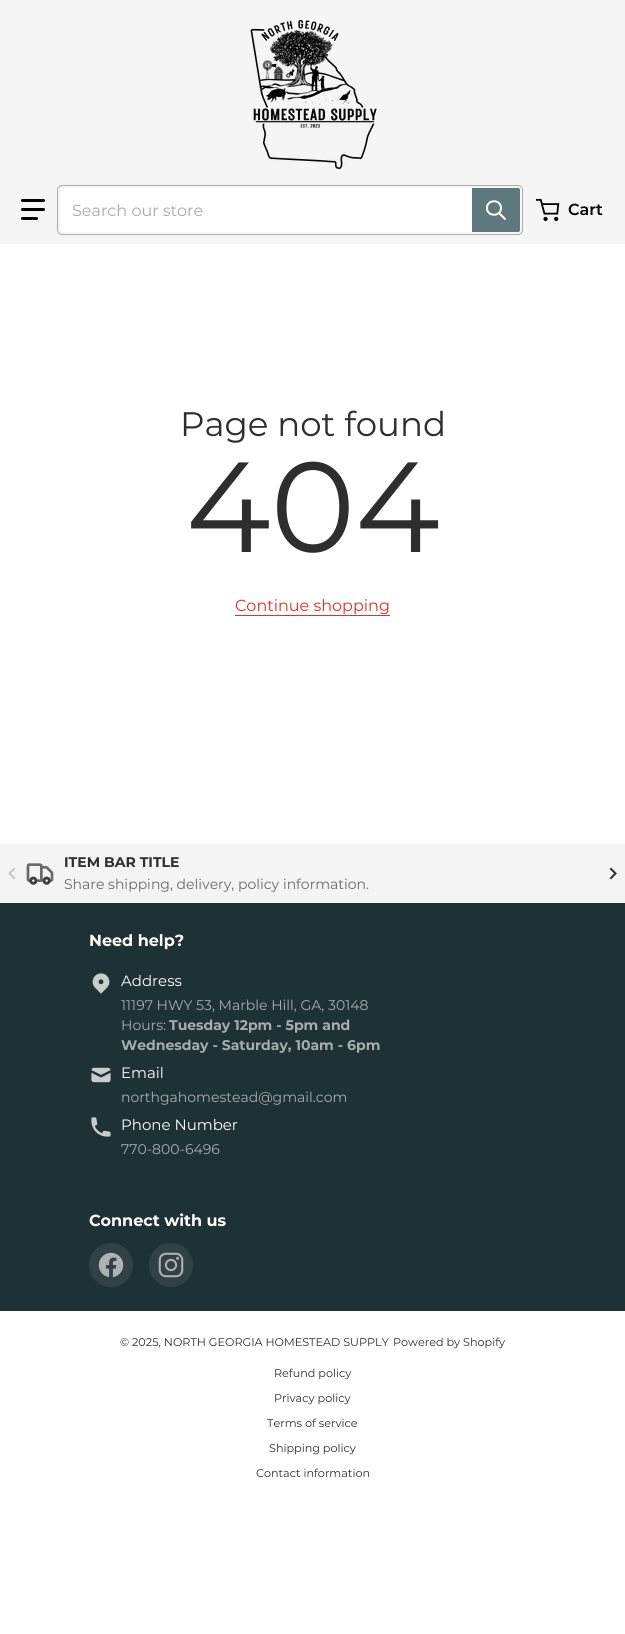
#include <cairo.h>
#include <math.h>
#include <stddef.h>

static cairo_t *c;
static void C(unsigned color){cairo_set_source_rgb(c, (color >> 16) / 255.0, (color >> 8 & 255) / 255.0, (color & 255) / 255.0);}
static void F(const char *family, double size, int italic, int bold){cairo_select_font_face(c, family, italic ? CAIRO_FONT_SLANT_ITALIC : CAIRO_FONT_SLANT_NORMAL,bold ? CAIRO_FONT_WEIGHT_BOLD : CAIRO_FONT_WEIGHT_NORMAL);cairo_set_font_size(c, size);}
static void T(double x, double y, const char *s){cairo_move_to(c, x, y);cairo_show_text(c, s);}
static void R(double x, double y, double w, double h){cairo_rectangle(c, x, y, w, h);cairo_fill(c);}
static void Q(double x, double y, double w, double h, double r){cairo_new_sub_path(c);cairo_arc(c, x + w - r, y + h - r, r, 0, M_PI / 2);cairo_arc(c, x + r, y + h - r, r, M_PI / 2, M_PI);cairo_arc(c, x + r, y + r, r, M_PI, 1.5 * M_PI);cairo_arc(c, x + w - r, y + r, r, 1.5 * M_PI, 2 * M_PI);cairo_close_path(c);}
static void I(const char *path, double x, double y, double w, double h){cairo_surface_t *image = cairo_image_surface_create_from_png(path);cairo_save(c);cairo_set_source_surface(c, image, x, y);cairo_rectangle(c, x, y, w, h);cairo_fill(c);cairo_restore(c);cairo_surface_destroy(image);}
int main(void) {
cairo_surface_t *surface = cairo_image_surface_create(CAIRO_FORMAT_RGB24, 625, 1634);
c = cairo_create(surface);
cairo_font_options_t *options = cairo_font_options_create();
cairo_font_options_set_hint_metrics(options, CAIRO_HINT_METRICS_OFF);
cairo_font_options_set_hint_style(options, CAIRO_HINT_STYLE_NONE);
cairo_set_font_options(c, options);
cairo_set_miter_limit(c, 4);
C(0xffffff);
cairo_paint(c);
C(0xf5f5f5);
R(0,0,625,244);
I("1.png",250,19,127,150);
cairo_new_path(c);
cairo_move_to(c,22.5,200.5);
cairo_line_to(c,43.5,200.5);
cairo_move_to(c,22.5,209.5);
cairo_line_to(c,43.5,209.5);
cairo_move_to(c,22.5,218.5);
cairo_line_to(c,36.5,218.5);
C(0x000000);
cairo_set_line_width(c,3);
cairo_set_line_cap(c,CAIRO_LINE_CAP_ROUND);
cairo_stroke(c);
Q(58.5,186.5,463,47,3.5);
C(0xacacac);
cairo_set_line_cap(c,CAIRO_LINE_CAP_BUTT);
cairo_stroke(c);
Q(59,187,462,46,3);
C(0xf5f5f5);
cairo_set_line_width(c,2);
cairo_stroke(c);
C(0xffffff);
Q(60,188,444,44,2);
cairo_fill(c);
F("Montserrat",16,0,0);
C(0xababab);
T(72,216,"Search our store");
C(0x5e797e);
cairo_new_path(c);
cairo_move_to(c,472,188);
cairo_line_to(c,518,188);
cairo_curve_to(c,519,188,520,189,520,190);
cairo_line_to(c,520,230);
cairo_curve_to(c,520,231,519,232,518,232);
cairo_line_to(c,472,232);
cairo_close_path(c);
cairo_fill(c);
cairo_new_path(c);
cairo_move_to(c,505,219);
cairo_line_to(c,499,213);
cairo_move_to(c,501,208);
cairo_curve_to(c,501,217,487,217,487,208);
cairo_curve_to(c,487,199,501,199,501,208);
cairo_close_path(c);
C(0xffffff);
cairo_set_line_cap(c,CAIRO_LINE_CAP_ROUND);
cairo_set_line_join(c,CAIRO_LINE_JOIN_ROUND);
cairo_stroke(c);
I("2.png",536,198,24,24);
F("Montserrat SemiBold",16,0,0);
C(0x000000);
T(568,215,"Cart");
F("Montserrat",34,0,0);
C(0x2e2e2e);
T(180,436,"Page not found");
F("Montserrat",128,0,0);
T(186,552,"404");
F("Montserrat",16,0,0);
C(0xe13124);
T(235,611,"Continue shopping");
R(235,615,155,1);
C(0xf4f4f5);
R(0,844,625,59);
I("3.png",26,863,28,22);
F("Montserrat",14,0,1);
C(0x2e2e2e);
T(64,867,"ITEM BAR TITLE");
F("Montserrat",14,0,0);
C(0x69696a);
T(64,889,"Share shipping, delivery, policy information.");
cairo_new_path(c);
cairo_move_to(c,14,869);
cairo_line_to(c,9.5,873.5);
cairo_line_to(c,14,878);
C(0xc5c5c5);
cairo_set_line_cap(c,CAIRO_LINE_CAP_SQUARE);
cairo_set_line_join(c,CAIRO_LINE_JOIN_MITER);
cairo_stroke(c);
cairo_new_path(c);
cairo_move_to(c,611,878);
cairo_line_to(c,615.5,873.5);
cairo_line_to(c,611,869);
C(0x2e2e2e);
cairo_stroke(c);
C(0x1e3236);
R(0,903,625,408);
F("Montserrat",16,0,1);
C(0xffffff);
T(89,946,"Need help?");
I("4.png",92,973,18,21);
F("Montserrat",15,0,0);
T(121,986,"Address");
F("Montserrat",14,0,0);
C(0xa5adaf);
T(121,1010,"11197 HWY 53, Marble Hill, GA, 30148");
T(121,1030,"Hours:");
F("Montserrat",14,0,1);
T(169,1030,"Tuesday 12pm - 5pm and");
T(121,1050,"Wednesday - Saturday, 10am - 6pm");
I("5.png",91,1067,20,16);
F("Montserrat",15,0,0);
C(0xffffff);
T(121,1078,"Email");
F("Montserrat",14,0,0);
C(0xa5adaf);
T(121,1102,"northgahomestead@gmail.com");
I("6.png",91,1117,20,20);
F("Montserrat",15,0,0);
C(0xffffff);
T(121,1130,"Phone Number");
F("Montserrat",14,0,0);
C(0xa5adaf);
T(121,1154,"770-800-6496");
F("Montserrat",16,0,1);
C(0xffffff);
T(89,1226,"Connect with us");
C(0x304246);
cairo_new_path(c);
cairo_arc(c,111,1265,22,0,2 * M_PI);
cairo_fill(c);
I("7.png",98,1252,26,26);
cairo_arc(c,171,1265,22,0,2 * M_PI);
cairo_fill(c);
I("8.png",158,1252,26,26);
F("Montserrat",11.2,0,0);
C(0x2e2e2e);
T(120,1346,"© 2025, NORTH GEORGIA HOMESTEAD SUPPLY");
T(393,1346,"Powered by Shopify");
T(274,1377,"Refund policy");
T(274,1402,"Privacy policy");
T(267,1427,"Terms of service");
T(269,1452,"Shipping policy");
T(256,1477,"Contact information");
cairo_surface_write_to_png(surface, "o.png");
cairo_font_options_destroy(options);
cairo_destroy(c);
cairo_surface_destroy(surface);
return 0;
}
